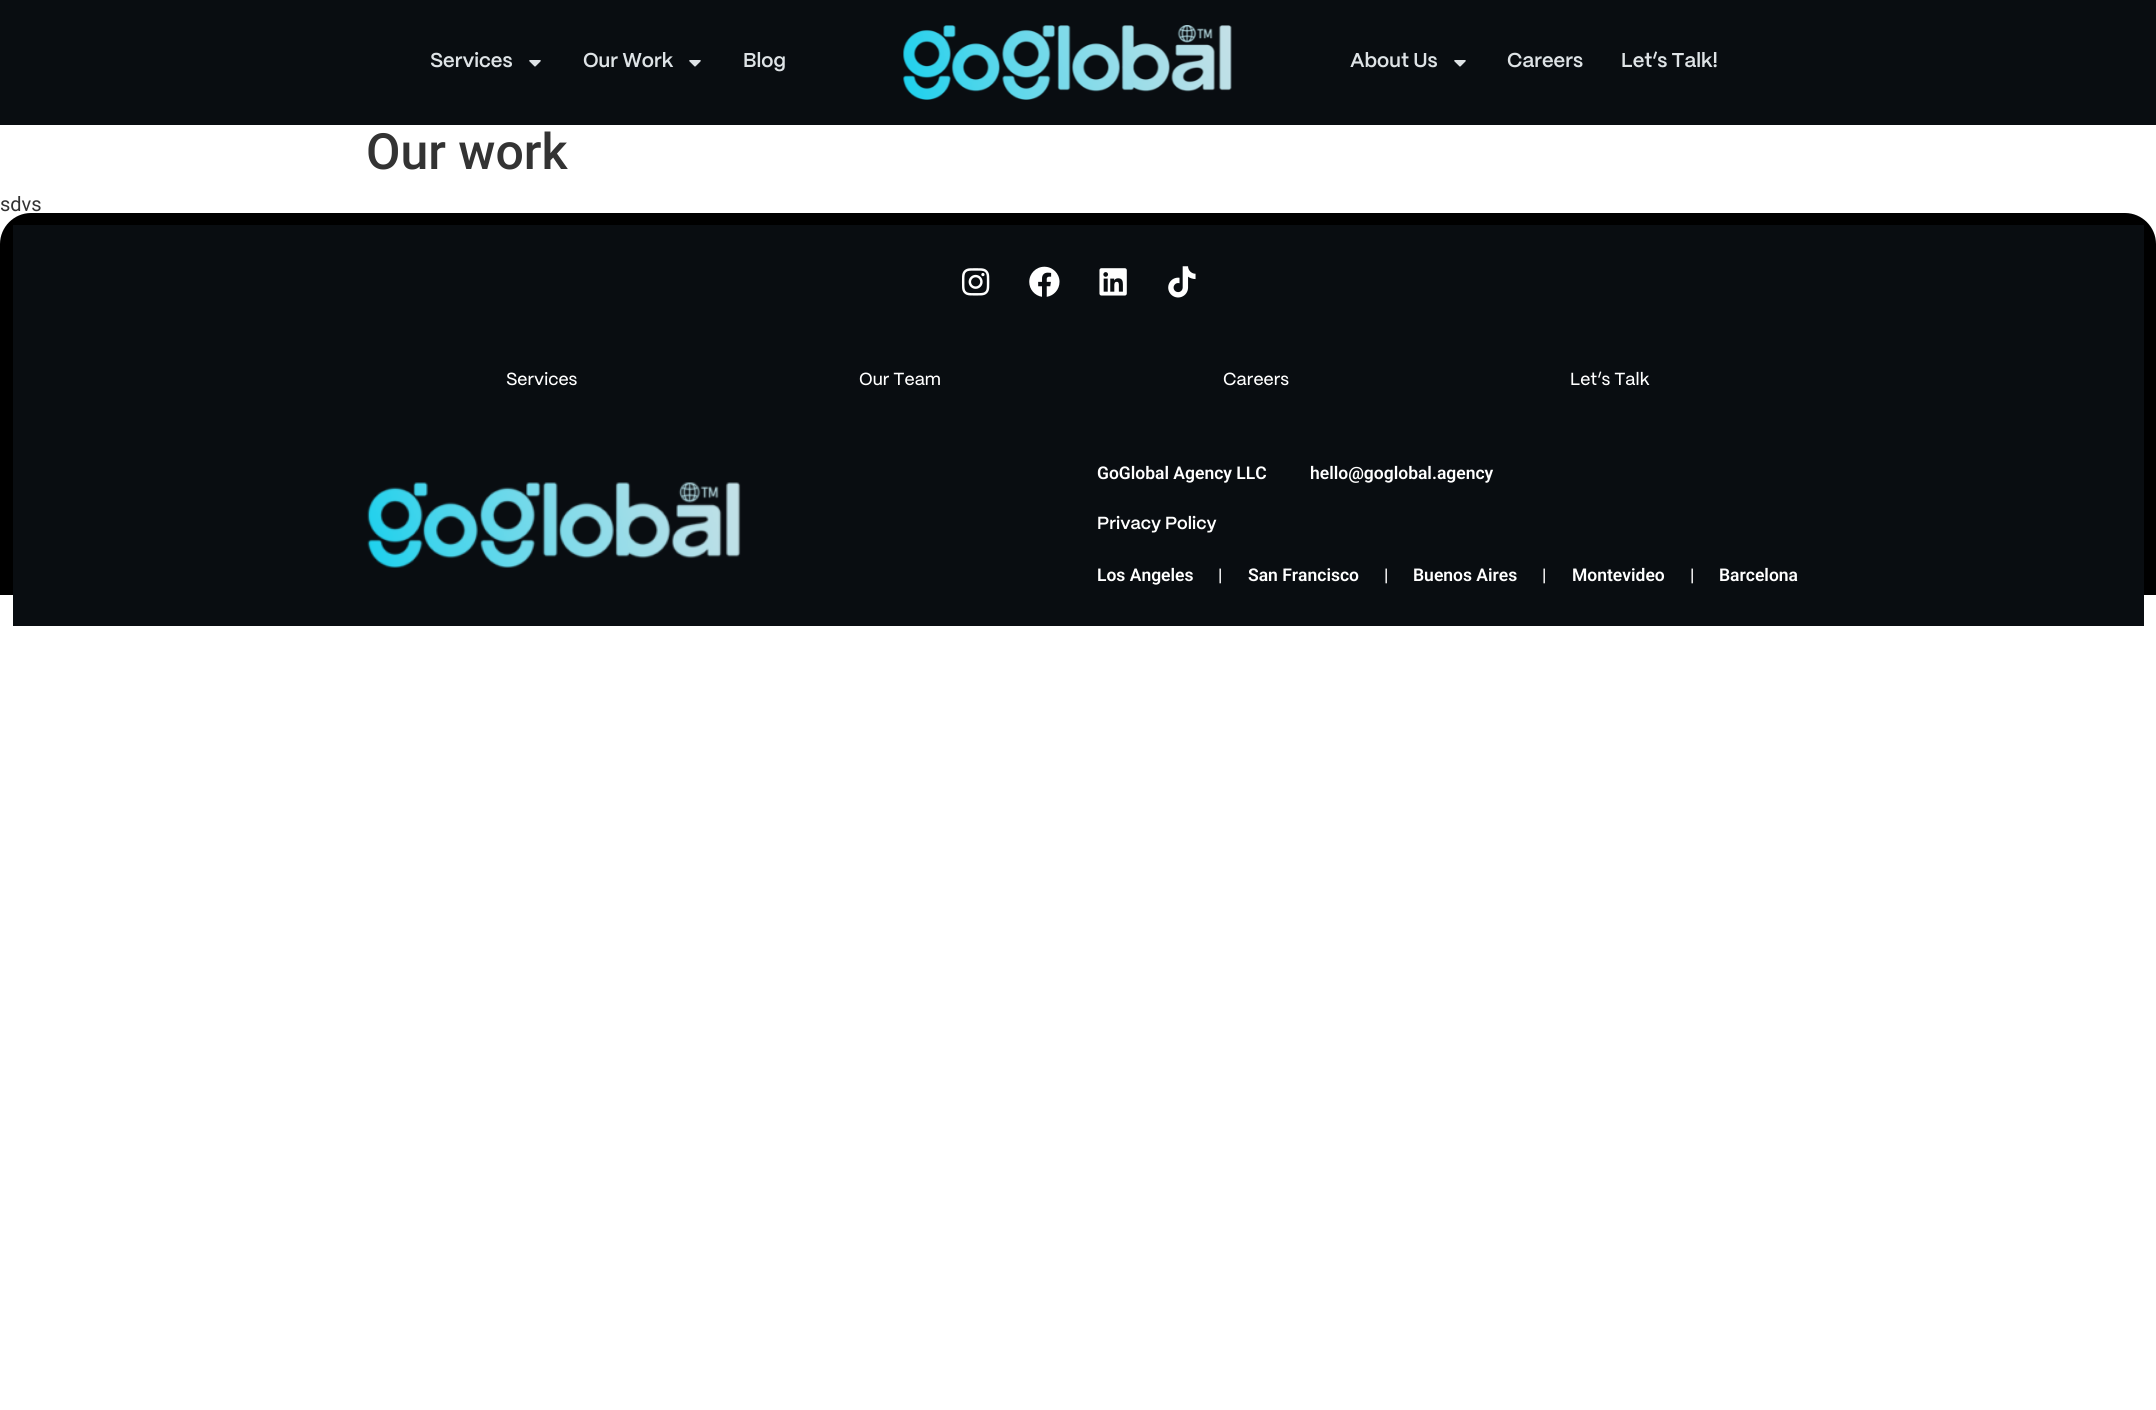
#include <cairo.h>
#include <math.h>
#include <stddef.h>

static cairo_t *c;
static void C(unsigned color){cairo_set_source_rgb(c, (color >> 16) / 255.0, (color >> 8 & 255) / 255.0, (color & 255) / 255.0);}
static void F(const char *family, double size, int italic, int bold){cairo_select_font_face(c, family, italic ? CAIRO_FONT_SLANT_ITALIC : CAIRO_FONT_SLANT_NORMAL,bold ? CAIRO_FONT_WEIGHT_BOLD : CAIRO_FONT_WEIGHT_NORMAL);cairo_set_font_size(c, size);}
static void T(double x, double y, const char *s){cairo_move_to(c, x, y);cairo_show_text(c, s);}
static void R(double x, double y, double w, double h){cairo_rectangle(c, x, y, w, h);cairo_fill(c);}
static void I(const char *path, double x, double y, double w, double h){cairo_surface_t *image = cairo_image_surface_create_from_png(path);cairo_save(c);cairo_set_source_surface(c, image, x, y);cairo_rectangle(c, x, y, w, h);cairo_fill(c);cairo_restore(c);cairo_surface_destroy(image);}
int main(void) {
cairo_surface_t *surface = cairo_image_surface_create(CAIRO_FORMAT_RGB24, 2156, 1410);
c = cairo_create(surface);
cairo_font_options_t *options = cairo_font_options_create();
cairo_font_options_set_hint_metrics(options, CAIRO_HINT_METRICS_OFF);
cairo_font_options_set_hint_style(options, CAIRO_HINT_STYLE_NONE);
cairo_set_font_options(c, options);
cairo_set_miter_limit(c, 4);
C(0xffffff);
cairo_paint(c);
C(0x090d11);
R(0,0,2156,125);
F("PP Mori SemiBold",20,0,0);
C(0xdee3e6);
T(430,67,"Services");
I("1.png",529,60,12,7);
T(583,67,"Our Work");
I("1.png",689,60,12,7);
T(743,67,"Blog");
I("2.png",903,25,329,75);
T(1350,67,"About Us");
I("1.png",1454,60,12,7);
T(1507,67,"Careers");
T(1621,67,"Let’s Talk!");
F("Roboto Medium",50,0,0);
C(0x333333);
T(366,169,"Our work");
F("Roboto",20,0,0);
T(0,211,"sdvs");
C(0x000000);
cairo_new_path(c);
cairo_move_to(c,31,213);
cairo_line_to(c,2125,213);
cairo_curve_to(c,2142,213,2156,227,2156,244);
cairo_line_to(c,2156,595);
cairo_line_to(c,0,595);
cairo_line_to(c,0,244);
cairo_curve_to(c,0,227,14,213,31,213);
cairo_close_path(c);
cairo_fill(c);
C(0x090d11);
R(13,225,2131,401);
I("3.png",961,268,29,28);
I("4.png",1029,266,31,31);
I("5.png",1099,268,28,28);
I("6.png",1168,266,28,32);
F("PP Mori Medium",17.5,0,0);
C(0xffffff);
T(506,385,"Services");
T(859,385,"Our Team");
T(1223,385,"Careers");
T(1570,385,"Let’s Talk");
I("7.png",367,482,374,86);
F("Roboto SemiBold",17.5,0,0);
T(1097,479,"GoGlobal Agency LLC");
T(1310,479,"hello@goglobal.agency");
F("PP Mori SemiBold",17.5,0,0);
T(1097,529,"Privacy Policy");
F("Roboto SemiBold",17.5,0,0);
T(1097,581,"Los Angeles");
T(1218,581,"|");
T(1248,581,"San Francisco");
T(1384,581,"|");
T(1413,581,"Buenos Aires");
T(1542,581,"|");
T(1572,581,"Montevideo");
T(1690,581,"|");
T(1719,581,"Barcelona");
cairo_surface_write_to_png(surface, "o.png");
cairo_font_options_destroy(options);
cairo_destroy(c);
cairo_surface_destroy(surface);
return 0;
}
